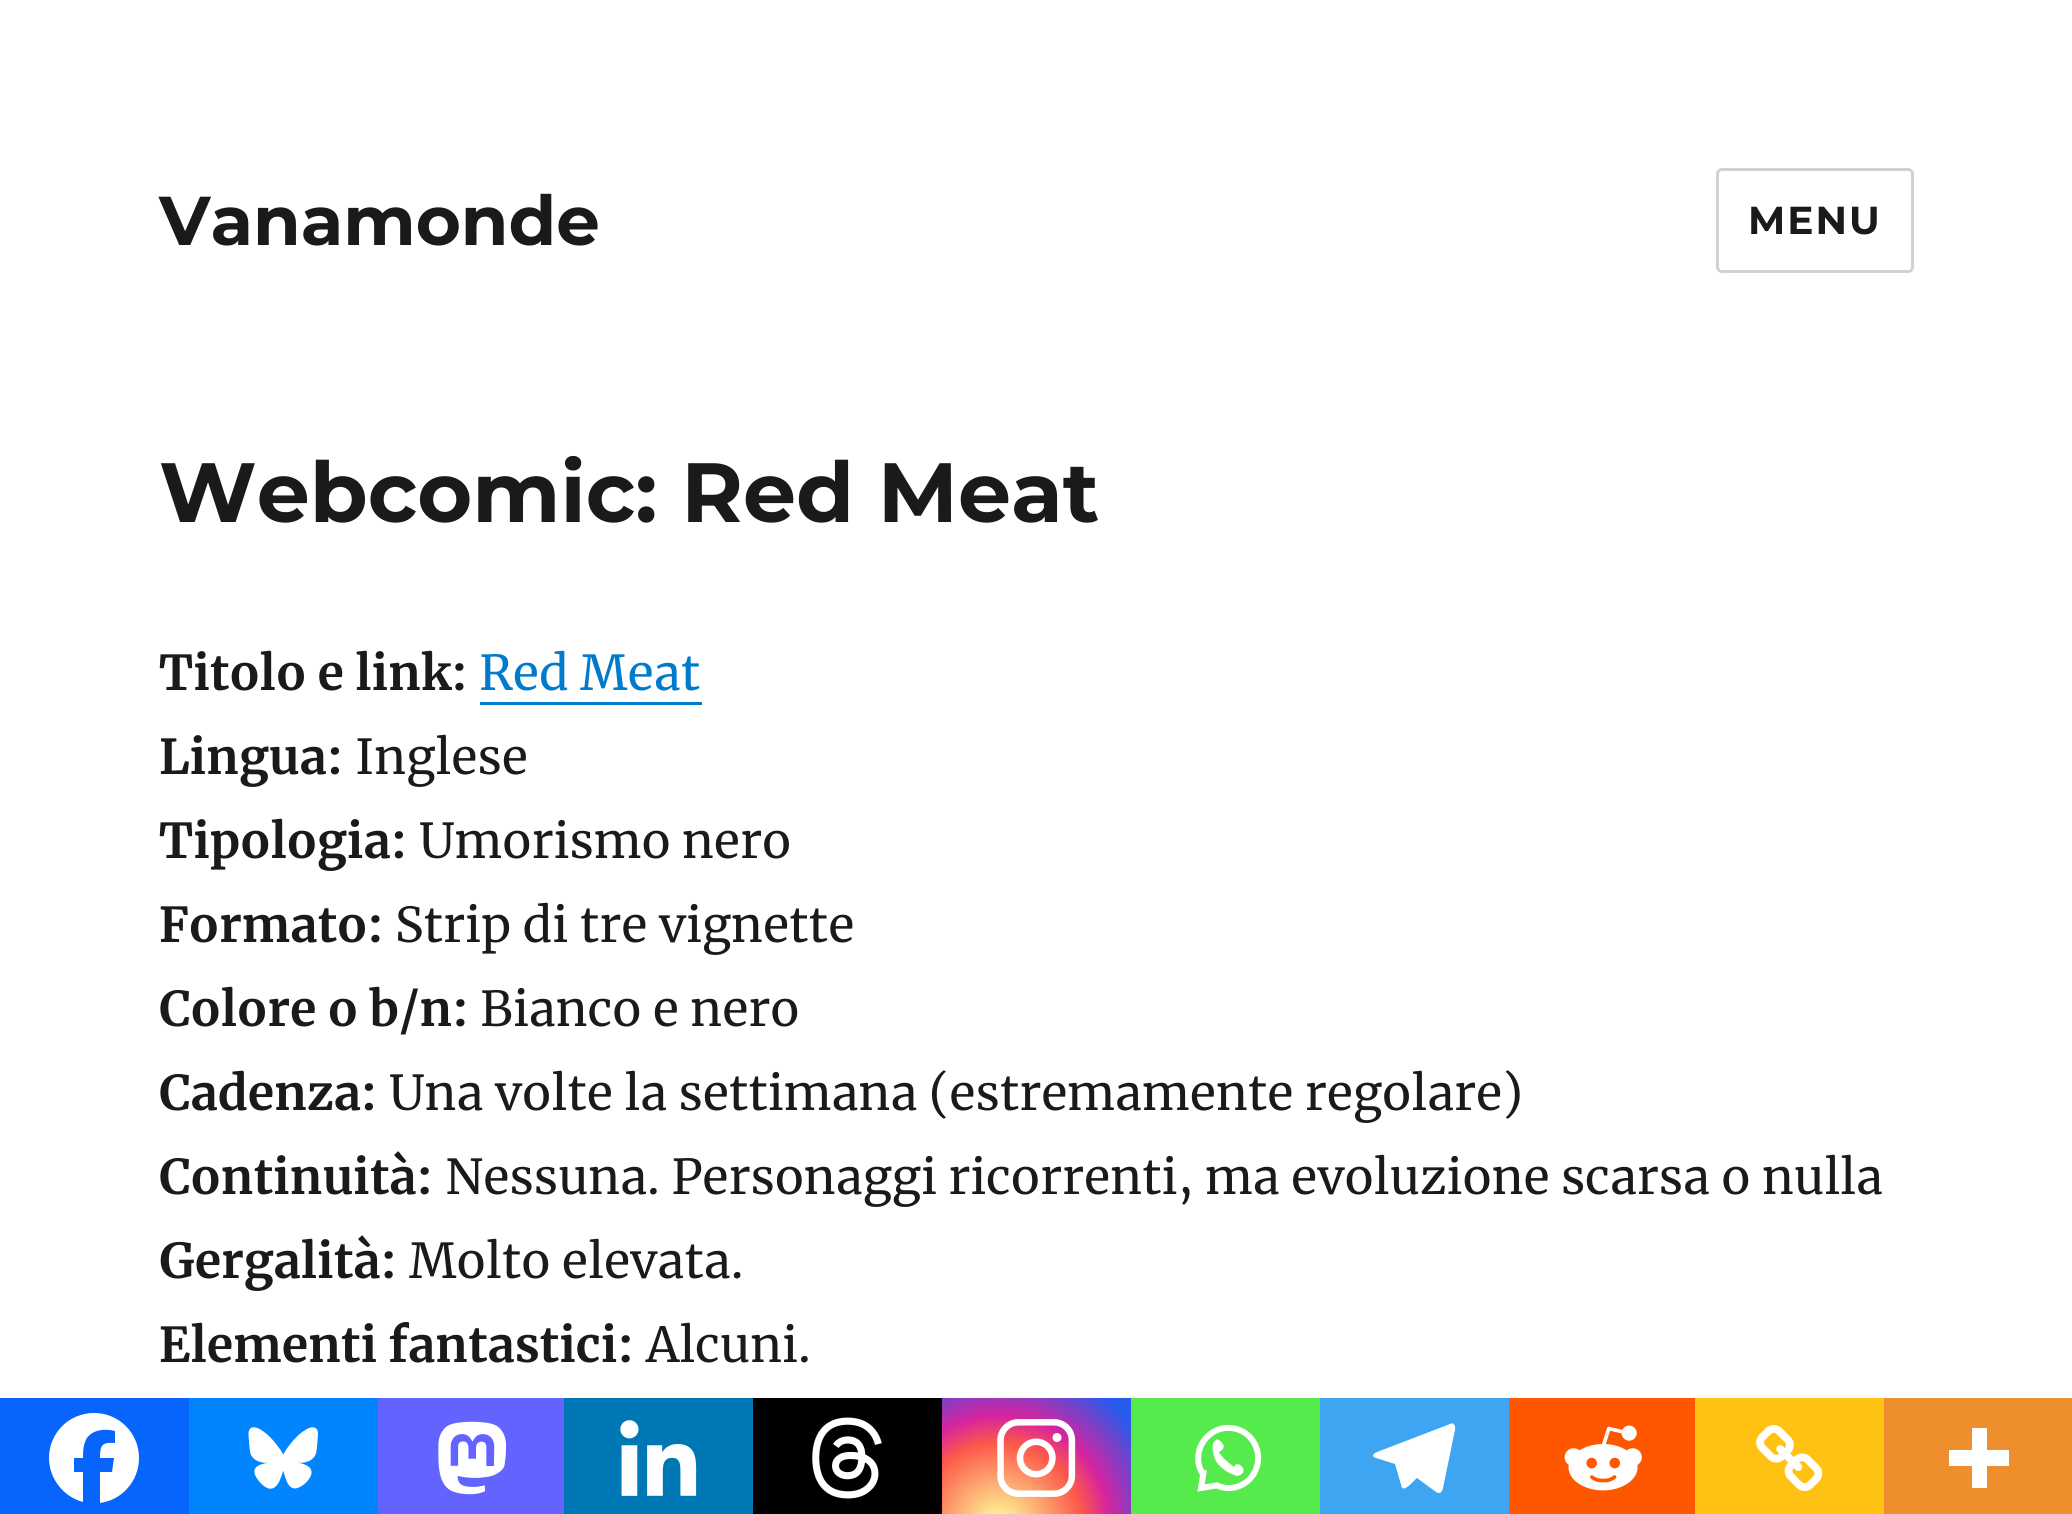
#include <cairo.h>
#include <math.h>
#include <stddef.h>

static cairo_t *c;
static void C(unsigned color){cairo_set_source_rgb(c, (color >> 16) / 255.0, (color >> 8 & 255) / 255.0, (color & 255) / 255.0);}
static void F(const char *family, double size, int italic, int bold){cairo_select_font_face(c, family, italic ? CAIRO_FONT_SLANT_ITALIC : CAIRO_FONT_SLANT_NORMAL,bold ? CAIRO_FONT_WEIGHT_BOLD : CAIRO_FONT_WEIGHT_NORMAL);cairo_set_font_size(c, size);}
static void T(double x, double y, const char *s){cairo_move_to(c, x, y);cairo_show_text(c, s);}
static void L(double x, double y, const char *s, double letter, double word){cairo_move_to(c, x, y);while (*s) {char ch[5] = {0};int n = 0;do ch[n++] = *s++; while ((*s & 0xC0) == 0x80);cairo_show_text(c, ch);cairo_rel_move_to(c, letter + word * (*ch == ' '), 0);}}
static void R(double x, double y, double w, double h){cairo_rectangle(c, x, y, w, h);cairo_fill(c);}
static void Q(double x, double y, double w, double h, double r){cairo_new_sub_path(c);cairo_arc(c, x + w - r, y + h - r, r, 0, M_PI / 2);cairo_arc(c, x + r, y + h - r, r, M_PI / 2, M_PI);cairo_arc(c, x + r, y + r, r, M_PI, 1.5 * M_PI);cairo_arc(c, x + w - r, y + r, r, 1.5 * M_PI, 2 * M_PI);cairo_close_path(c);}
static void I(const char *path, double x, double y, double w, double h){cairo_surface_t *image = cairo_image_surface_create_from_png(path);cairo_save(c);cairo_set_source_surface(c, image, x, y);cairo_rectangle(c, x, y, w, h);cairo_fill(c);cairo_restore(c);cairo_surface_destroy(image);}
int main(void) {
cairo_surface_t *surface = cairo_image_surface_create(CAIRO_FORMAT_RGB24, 2072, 1514);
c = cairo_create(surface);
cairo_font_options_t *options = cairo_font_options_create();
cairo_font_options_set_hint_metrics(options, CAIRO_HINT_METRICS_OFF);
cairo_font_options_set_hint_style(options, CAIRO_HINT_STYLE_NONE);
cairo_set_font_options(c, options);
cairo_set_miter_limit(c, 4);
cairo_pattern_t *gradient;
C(0xffffff);
cairo_paint(c);
F("Montserrat Thin",69,0,0);
C(0x1a1a1a);
T(159,245,"Vanamonde");
Q(1717.5,169.5,195,102,4.5);
C(0xd1d1d1);
cairo_set_line_width(c,3);
cairo_stroke(c);
F("Montserrat Thin",39,0,0);
C(0x1a1a1a);
L(1748,234,"MENU",2,0);
F("Montserrat Thin",84,0,0);
T(159,522,"Webcomic: Red Meat");
F("Merriweather",48,0,1);
T(159,690,"Titolo e link:");
F("Merriweather",48,0,0);
C(0x007acc);
T(479,690,"Red Meat");
R(480,702,222,3);
F("Merriweather",48,0,1);
C(0x1a1a1a);
T(159,774,"Lingua:");
F("Merriweather",48,0,0);
T(355,774,"Inglese");
F("Merriweather",48,0,1);
T(159,858,"Tipologia:");
F("Merriweather",48,0,0);
T(419,858,"Umorismo nero");
F("Merriweather",48,0,1);
T(159,942,"Formato:");
F("Merriweather",48,0,0);
T(395,942,"Strip di tre vignette");
F("Merriweather",48,0,1);
T(159,1026,"Colore o b/n:");
F("Merriweather",48,0,0);
T(480,1026,"Bianco e nero");
F("Merriweather",48,0,1);
T(159,1110,"Cadenza:");
F("Merriweather",48,0,0);
T(389,1110,"Una volte la settimana (estremamente regolare)");
F("Merriweather",48,0,1);
T(159,1194,"Continuità:");
F("Merriweather",48,0,0);
T(445,1194,"Nessuna. Personaggi ricorrenti, ma evoluzione scarsa o nulla");
F("Merriweather",48,0,1);
T(159,1278,"Gergalità:");
F("Merriweather",48,0,0);
T(409,1278,"Molto elevata.");
F("Merriweather",48,0,1);
T(159,1362,"Elementi fantastici:");
F("Merriweather",48,0,0);
T(646,1362,"Alcuni.");
C(0x0765fe);
R(0,1398,189,116);
C(0xffffff);
cairo_new_path(c);
cairo_move_to(c,139,1458);
cairo_curve_to(c,139,1433,119,1413,94,1413);
cairo_curve_to(c,69,1413,49,1433,49,1458);
cairo_curve_to(c,49,1479,64,1497,83,1502);
cairo_line_to(c,83,1472);
cairo_line_to(c,74,1472);
cairo_line_to(c,74,1458);
cairo_line_to(c,83,1458);
cairo_curve_to(c,83,1453,83,1447,85,1442);
cairo_curve_to(c,89,1430,104,1428,115,1431);
cairo_line_to(c,115,1443);
cairo_curve_to(c,102,1442,100,1445,100,1458);
cairo_line_to(c,114,1458);
cairo_line_to(c,112,1472);
cairo_line_to(c,100,1472);
cairo_line_to(c,100,1503);
cairo_curve_to(c,122,1500,139,1481,139,1458);
cairo_close_path(c);
cairo_fill(c);
C(0x0085ff);
R(189,1398,189,116);
I("1.png",248,1427,70,62);
C(0x6364ff);
R(378,1398,186,116);
I("2.png",438,1421,69,74);
C(0x0077b5);
R(564,1398,189,116);
I("3.png",620,1420,77,76);
C(0x000000);
R(753,1398,189,116);
I("4.png",812,1417,70,82);
gradient = cairo_pattern_create_radial(999,1526,0,999,1526,184);
cairo_pattern_add_color_stop_rgba(gradient,0,0.992,0.957,0.592,1);
cairo_pattern_add_color_stop_rgba(gradient,.05,0.992,0.957,0.592,1);
cairo_pattern_add_color_stop_rgba(gradient,.45,0.992,0.349,0.286,1);
cairo_pattern_add_color_stop_rgba(gradient,.6,0.839,0.141,0.624,1);
cairo_pattern_add_color_stop_rgba(gradient,.9,0.157,0.353,0.922,1);
cairo_set_source(c,gradient);
cairo_pattern_destroy(gradient);
R(942,1398,189,116);
I("5.png",997,1419,79,78);
C(0x55eb4c);
R(1131,1398,189,116);
cairo_new_path(c);
cairo_move_to(c,1218,1486);
cairo_curve_to(c,1232,1491.5,1247.5,1485.5,1254.5,1472.5);
cairo_curve_to(c,1261.5,1459.5,1258,1443,1246.5,1434);
cairo_curve_to(c,1234.5,1425,1218,1426,1207.5,1436.5);
cairo_curve_to(c,1197,1446.5,1195,1463,1203.5,1475);
C(0xffffff);
cairo_set_line_width(c,6);
cairo_stroke(c);
cairo_new_path(c);
cairo_move_to(c,1204,1470);
cairo_line_to(c,1201,1488);
cairo_line_to(c,1219,1485);
cairo_stroke(c);
cairo_new_path(c);
cairo_move_to(c,1213,1443);
cairo_curve_to(c,1211,1459,1219,1470,1237,1476);
cairo_curve_to(c,1252,1473,1237,1458,1234,1467);
cairo_curve_to(c,1226,1461,1221,1456,1219,1452);
cairo_curve_to(c,1231,1446,1216,1437,1216,1440);
cairo_fill(c);
C(0x3da5f1);
R(1320,1398,189,116);
C(0xffffff);
cairo_new_path(c);
cairo_move_to(c,1450,1424);
cairo_line_to(c,1377,1452);
cairo_curve_to(c,1372,1454,1372,1457,1376,1458);
cairo_line_to(c,1395,1464);
cairo_line_to(c,1402,1488);
cairo_curve_to(c,1406,1491,1415,1479,1417,1478);
cairo_line_to(c,1436,1492);
cairo_curve_to(c,1439,1494,1442,1493,1443,1488);
cairo_line_to(c,1455,1430);
cairo_curve_to(c,1456,1425,1453,1422,1450,1424);
cairo_close_path(c);
cairo_fill(c);
C(0xff5700);
R(1509,1398,186,116);
I("6.png",1564,1425,78,66);
C(0xffc112);
R(1695,1398,189,116);
I("7.png",1756,1425,67,66);
C(0xee8e2d);
R(1884,1398,188,116);
C(0xffffff);
cairo_set_fill_rule(c,CAIRO_FILL_RULE_EVEN_ODD);
cairo_new_path(c);
cairo_move_to(c,1987,1450);
cairo_line_to(c,1987,1428);
cairo_line_to(c,1972,1428);
cairo_line_to(c,1972,1450);
cairo_line_to(c,1949,1450);
cairo_line_to(c,1949,1466);
cairo_line_to(c,1972,1466);
cairo_line_to(c,1972,1488);
cairo_line_to(c,1987,1488);
cairo_line_to(c,1987,1466);
cairo_line_to(c,2009,1466);
cairo_line_to(c,2009,1450);
cairo_close_path(c);
cairo_fill(c);
cairo_surface_write_to_png(surface, "o.png");
cairo_font_options_destroy(options);
cairo_destroy(c);
cairo_surface_destroy(surface);
return 0;
}
